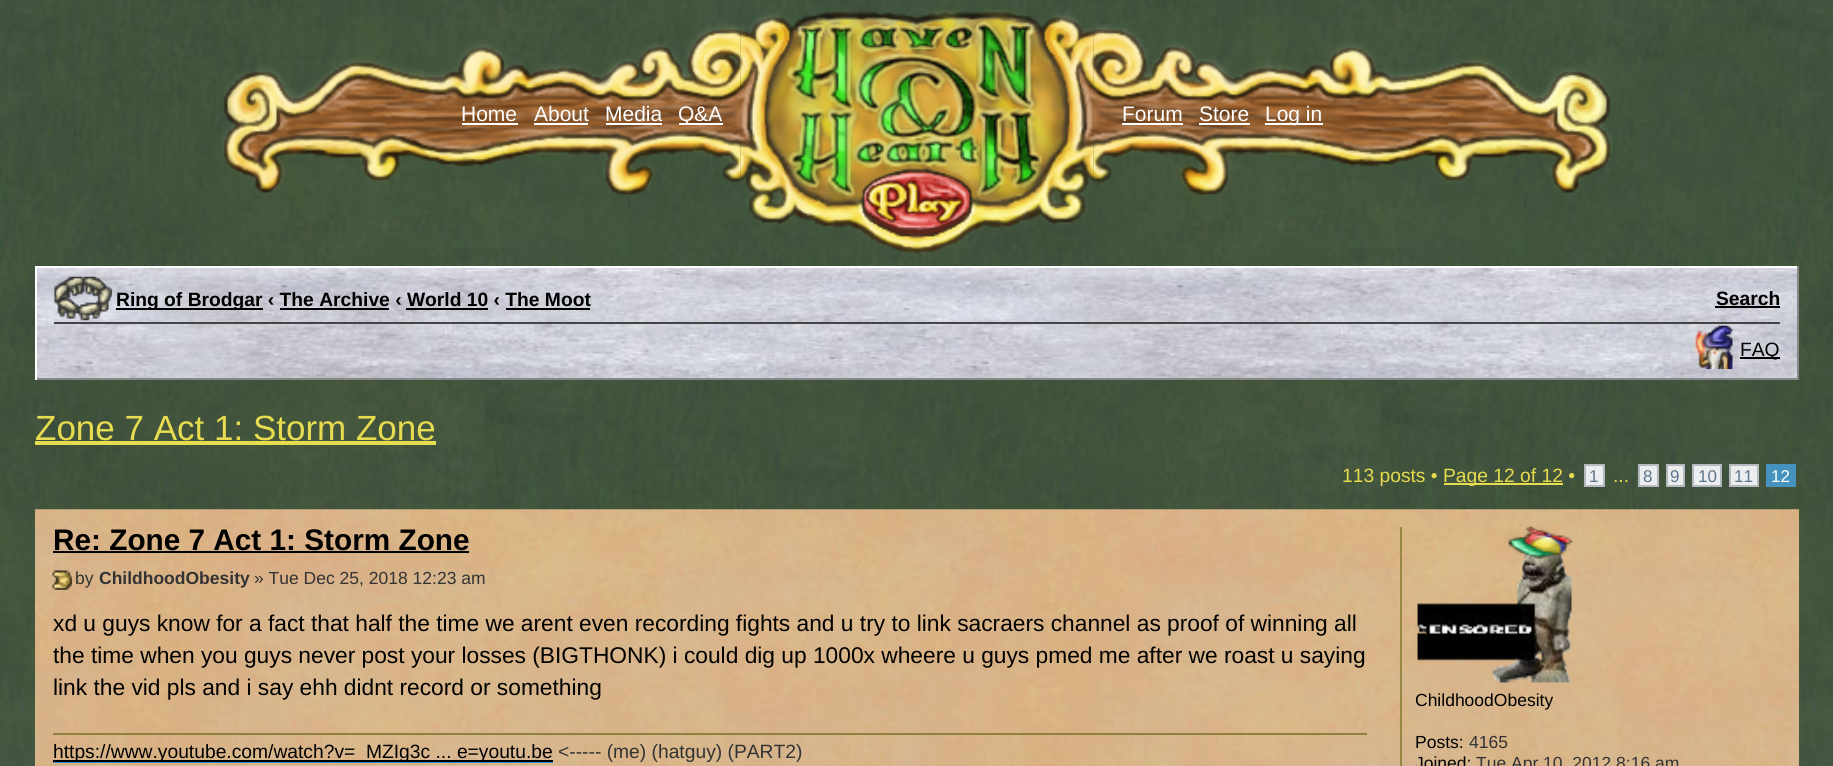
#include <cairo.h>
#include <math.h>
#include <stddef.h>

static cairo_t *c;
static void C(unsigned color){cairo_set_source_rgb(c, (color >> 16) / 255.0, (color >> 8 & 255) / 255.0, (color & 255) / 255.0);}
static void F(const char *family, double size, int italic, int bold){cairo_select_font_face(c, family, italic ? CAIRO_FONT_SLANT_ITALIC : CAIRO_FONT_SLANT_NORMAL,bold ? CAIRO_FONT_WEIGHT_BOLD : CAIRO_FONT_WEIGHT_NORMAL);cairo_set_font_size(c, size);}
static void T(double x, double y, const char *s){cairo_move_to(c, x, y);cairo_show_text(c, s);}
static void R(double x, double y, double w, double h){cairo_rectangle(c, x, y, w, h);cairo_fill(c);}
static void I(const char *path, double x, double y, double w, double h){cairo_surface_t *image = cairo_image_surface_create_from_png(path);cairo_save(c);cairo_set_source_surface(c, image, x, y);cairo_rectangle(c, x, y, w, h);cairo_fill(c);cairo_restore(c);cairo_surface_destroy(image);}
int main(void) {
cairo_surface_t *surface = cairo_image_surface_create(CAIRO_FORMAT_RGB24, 1833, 766);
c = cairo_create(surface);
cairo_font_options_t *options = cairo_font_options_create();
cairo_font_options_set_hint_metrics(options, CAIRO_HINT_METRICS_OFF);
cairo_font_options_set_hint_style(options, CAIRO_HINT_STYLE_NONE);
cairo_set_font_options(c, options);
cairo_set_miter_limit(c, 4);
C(0xffffff);
cairo_paint(c);
I("1.png",0,0,1833,766);
I("2.png",221,24,520,171);
F("Liberation Sans",21,0,0);
C(0xffffff);
T(461,121,"Home");
R(462,123,56,2);
T(534,121,"About");
R(534,123,54,2);
T(605,121,"Media");
R(606,123,56,2);
R(679,123,44,2);
T(678,121,"Q&A");
I("3.png",740,9,354,245);
I("4.png",1093,24,520,171);
T(1122,121,"Forum");
R(1122,123,61,2);
T(1199,121,"Store");
R(1199,123,51,2);
R(1265,123,58,2);
T(1265,121,"Log in");
I("5.png",37,268,1760,110);
R(35,266,1764,2);
C(0x888888);
R(1797,266,2,114);
R(35,378,1764,2);
C(0xffffff);
R(35,266,2,114);
C(0x444444);
R(54,322,1726,2);
I("6.png",54,276,58,45);
C(0x000000);
R(116,308,147,2);
F("Liberation Sans",19.25,0,1);
T(116,306,"Ring of Brodgar ‹ The Archive ‹ World 10 ‹ The Moot");
R(280,308,109,2);
R(406,308,82,2);
R(506,308,84,2);
T(1716,305,"Search");
R(1715,306,65,2);
I("7.png",1692,325,41,45);
R(1740,357,40,2);
F("Liberation Sans",19.25,0,0);
T(1740,356,"FAQ");
F("Liberation Sans",35,0,0);
C(0xe7db4f);
T(35,440,"Zone 7 Act 1: Storm Zone");
R(35,441,401,4);
F("Liberation Sans",19.25,0,0);
T(1342,482,"113 posts •");
R(1444,483,119,2);
T(1443,482,"Page 12 of 12 •");
C(0xecedee);
cairo_rectangle(c,1585,465,19,21);
cairo_fill_preserve(c);
C(0xb4bac0);
cairo_stroke(c);
F("Liberation Sans",17,0,0);
C(0x5c758c);
T(1589,482,"1");
F("Liberation Sans",19.25,0,0);
C(0xe7db4f);
T(1613,482,"...");
C(0xecedee);
cairo_rectangle(c,1639,465,19,21);
cairo_fill_preserve(c);
C(0xb4bac0);
cairo_stroke(c);
F("Liberation Sans",17,0,0);
C(0x5c758c);
T(1643,482,"8");
C(0xecedee);
cairo_rectangle(c,1667,465,17,21);
cairo_fill_preserve(c);
C(0xb4bac0);
cairo_stroke(c);
C(0x5c758c);
T(1670,482,"9");
C(0xecedee);
cairo_rectangle(c,1693,465,28,21);
cairo_fill_preserve(c);
C(0xb4bac0);
cairo_stroke(c);
C(0x5c758c);
T(1698,482,"10");
C(0xecedee);
cairo_rectangle(c,1730,465,28,21);
cairo_fill_preserve(c);
C(0xb4bac0);
cairo_stroke(c);
C(0x5c758c);
T(1734,482,"11");
C(0x4692bf);
R(1766,464,30,23);
C(0xffffff);
T(1771,482,"12");
I("8.png",35,509,1764,257);
F("Liberation Sans",29.75,0,1);
C(0x000000);
T(53,550,"Re: Zone 7 Act 1: Storm Zone");
R(53,551,416,2);
I("9.png",52,570,20,20);
F("Liberation Sans",17.5,0,0);
C(0x333333);
T(75,584,"by");
F("Liberation Sans",17.5,0,1);
T(99,584,"ChildhoodObesity");
F("Liberation Sans",17.5,0,0);
T(254,584,"» Tue Dec 25, 2018 12:23 am");
F("Liberation Sans",22.75,0,0);
C(0x000000);
T(53,631,"xd u guys know for a fact that half the time we arent even recording fights and u try to link sacraers channel as proof of winning all");
T(53,663,"the time when you guys never post your losses (BIGTHONK) i could dig up 1000x wheere u guys pmed me after we roast u saying");
T(53,695,"link the vid pls and i say ehh didnt record or something");
C(0x908040);
R(53,733,1314,2);
C(0x000000);
R(53,760,500,2);
F("Liberation Sans",19.25,0,0);
T(53,758,"https://www.youtube.com/watch?v=_MZIg3c ... e=youtu.be");
C(0x368ad2);
R(53,762,500,1);
C(0x333333);
T(558,758,"<----- (me) (hatguy) (PART2)");
C(0x998844);
R(1400,527,2,239);
I("10.png",1417,526,157,157);
F("Liberation Sans",17.5,0,0);
C(0x000000);
T(1415,706,"ChildhoodObesity");
T(1415,748,"Posts:");
C(0x333333);
T(1469,748,"4165");
C(0x000000);
T(1415,769,"Joined:");
C(0x333333);
T(1476,769,"Tue Apr 10, 2012 8:16 am");
cairo_surface_write_to_png(surface, "o.png");
cairo_font_options_destroy(options);
cairo_destroy(c);
cairo_surface_destroy(surface);
return 0;
}
